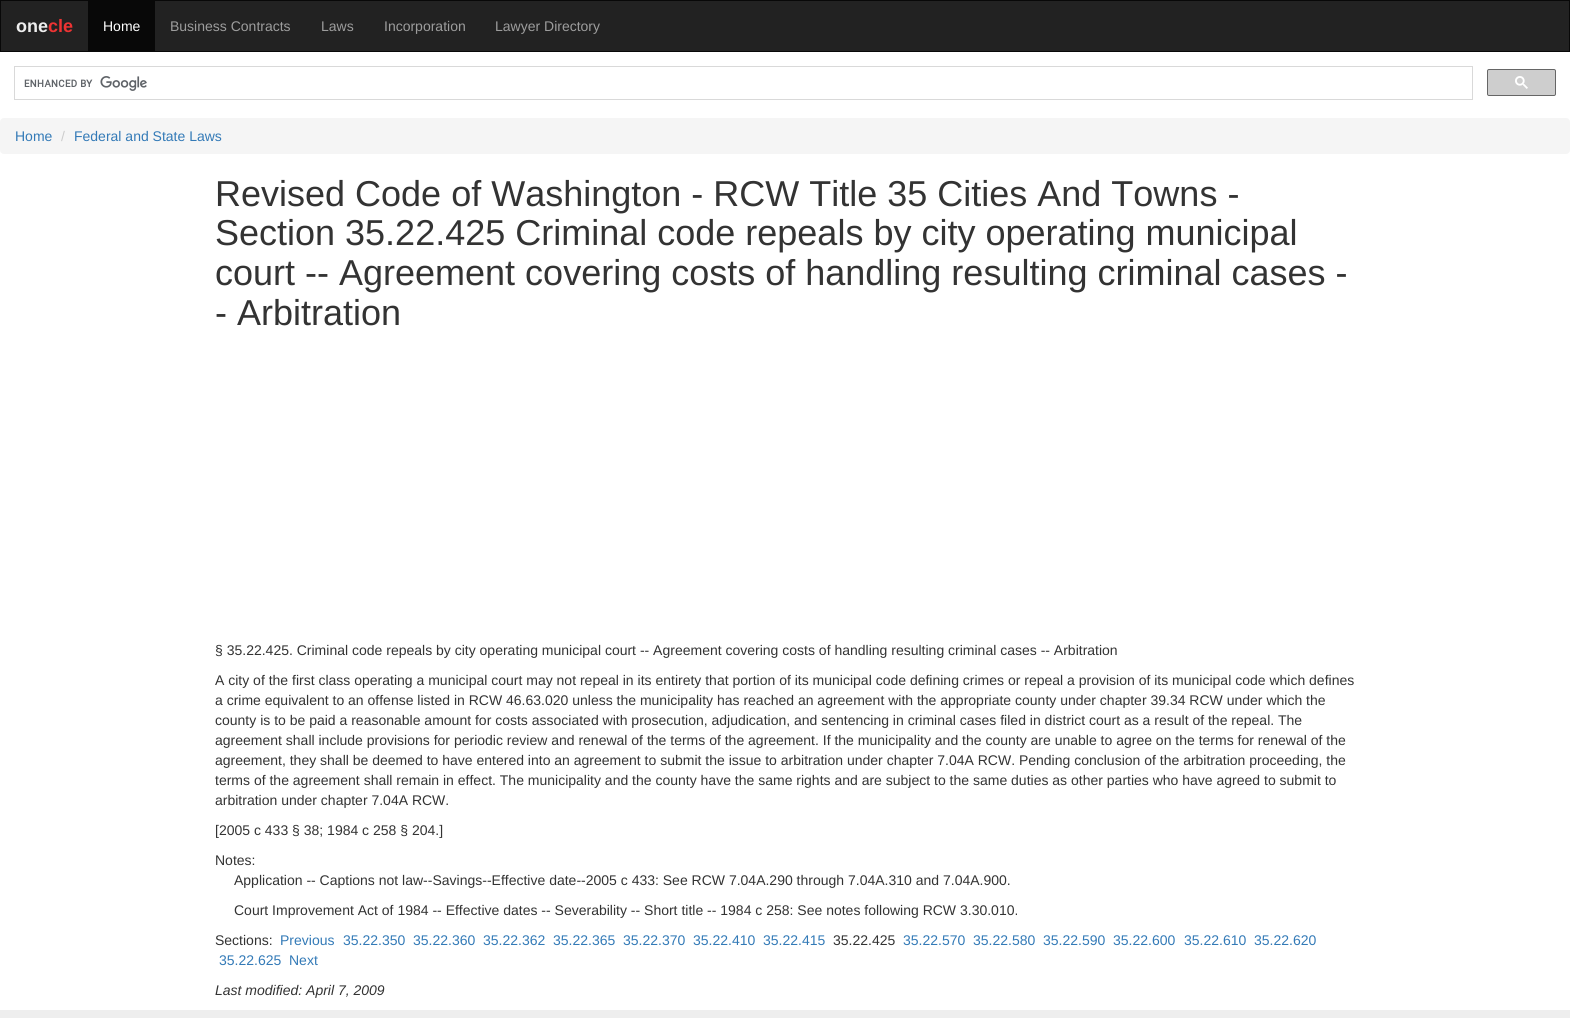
#include <cairo.h>
#include <math.h>
#include <stddef.h>

static cairo_t *c;
static void C(unsigned color){cairo_set_source_rgb(c, (color >> 16) / 255.0, (color >> 8 & 255) / 255.0, (color & 255) / 255.0);}
static void F(const char *family, double size, int italic, int bold){cairo_select_font_face(c, family, italic ? CAIRO_FONT_SLANT_ITALIC : CAIRO_FONT_SLANT_NORMAL,bold ? CAIRO_FONT_WEIGHT_BOLD : CAIRO_FONT_WEIGHT_NORMAL);cairo_set_font_size(c, size);}
static void T(double x, double y, const char *s){cairo_move_to(c, x, y);cairo_show_text(c, s);}
static void R(double x, double y, double w, double h){cairo_rectangle(c, x, y, w, h);cairo_fill(c);}
static void Q(double x, double y, double w, double h, double r){cairo_new_sub_path(c);cairo_arc(c, x + w - r, y + h - r, r, 0, M_PI / 2);cairo_arc(c, x + r, y + h - r, r, M_PI / 2, M_PI);cairo_arc(c, x + r, y + r, r, M_PI, 1.5 * M_PI);cairo_arc(c, x + w - r, y + r, r, 1.5 * M_PI, 2 * M_PI);cairo_close_path(c);}
static void I(const char *path, double x, double y, double w, double h){cairo_surface_t *image = cairo_image_surface_create_from_png(path);cairo_save(c);cairo_set_source_surface(c, image, x, y);cairo_rectangle(c, x, y, w, h);cairo_fill(c);cairo_restore(c);cairo_surface_destroy(image);}
int main(void) {
cairo_surface_t *surface = cairo_image_surface_create(CAIRO_FORMAT_RGB24, 1570, 1018);
c = cairo_create(surface);
cairo_font_options_t *options = cairo_font_options_create();
cairo_font_options_set_hint_metrics(options, CAIRO_HINT_METRICS_OFF);
cairo_font_options_set_hint_style(options, CAIRO_HINT_STYLE_NONE);
cairo_set_font_options(c, options);
cairo_set_miter_limit(c, 4);
C(0xffffff);
cairo_paint(c);
C(0x222222);
cairo_rectangle(c,.5,.5,1569,51);
cairo_fill_preserve(c);
C(0x080808);
cairo_set_line_width(c,1);
cairo_stroke(c);
F("Liberation Sans",18,0,1);
C(0xeeeeee);
T(16,32,"one");
C(0xee3333);
T(48,32,"cle");
C(0x080808);
R(88,1,67,50);
F("Liberation Sans",14,0,0);
C(0xffffff);
T(103,31,"Home");
C(0x9d9d9d);
T(170,31,"Business Contracts");
T(321,31,"Laws");
T(384,31,"Incorporation");
T(495,31,"Lawyer Directory");
cairo_rectangle(c,14.5,66.5,1458,33);
C(0xd9d9d9);
cairo_stroke(c);
I("1.png",24,76,123,15);
C(0xcecece);
Q(1487.5,69.5,68,26,1.5);
cairo_fill_preserve(c);
C(0x666666);
cairo_stroke(c);
I("2.png",1515,76,13,13);
C(0xf5f5f5);
Q(0,118,1570,36,4);
cairo_fill(c);
C(0x337ab7);
T(15,141,"Home");
C(0xcccccc);
T(61,141,"/");
C(0x337ab7);
T(74,141,"Federal and State Laws");
F("Liberation Sans",36,0,0);
C(0x333333);
T(215,206,"Revised Code of Washington - RCW Title 35 Cities And Towns -");
T(215,245,"Section 35.22.425 Criminal code repeals by city operating municipal");
T(215,285,"court -- Agreement covering costs of handling resulting criminal cases -");
T(215,325,"- Arbitration");
F("Liberation Sans",14,0,0);
T(215,655,"§ 35.22.425. Criminal code repeals by city operating municipal court -- Agreement covering costs of handling resulting criminal cases -- Arbitration");
T(215,685,"A city of the first class operating a municipal court may not repeal in its entirety that portion of its municipal code defining crimes or repeal a provision of its municipal code which defines");
T(215,705,"a crime equivalent to an offense listed in RCW 46.63.020 unless the municipality has reached an agreement with the appropriate county under chapter 39.34 RCW under which the");
T(215,725,"county is to be paid a reasonable amount for costs associated with prosecution, adjudication, and sentencing in criminal cases filed in district court as a result of the repeal. The");
T(215,745,"agreement shall include provisions for periodic review and renewal of the terms of the agreement. If the municipality and the county are unable to agree on the terms for renewal of the");
T(215,765,"agreement, they shall be deemed to have entered into an agreement to submit the issue to arbitration under chapter 7.04A RCW. Pending conclusion of the arbitration proceeding, the");
T(215,785,"terms of the agreement shall remain in effect. The municipality and the county have the same rights and are subject to the same duties as other parties who have agreed to submit to");
T(215,805,"arbitration under chapter 7.04A RCW.");
T(215,835,"[2005 c 433 § 38; 1984 c 258 § 204.]");
T(215,865,"Notes:");
T(234,885,"Application -- Captions not law--Savings--Effective date--2005 c 433: See RCW 7.04A.290 through 7.04A.310 and 7.04A.900.");
T(234,915,"Court Improvement Act of 1984 -- Effective dates -- Severability -- Short title -- 1984 c 258: See notes following RCW 3.30.010.");
T(215,945,"Sections:");
C(0x337ab7);
T(280,945,"Previous");
T(343,945,"35.22.350");
T(413,945,"35.22.360");
T(483,945,"35.22.362");
T(553,945,"35.22.365");
T(623,945,"35.22.370");
T(693,945,"35.22.410");
T(763,945,"35.22.415");
C(0x333333);
T(833,945,"35.22.425");
C(0x337ab7);
T(903,945,"35.22.570");
T(973,945,"35.22.580");
T(1043,945,"35.22.590");
T(1113,945,"35.22.600");
T(1184,945,"35.22.610");
T(1254,945,"35.22.620");
T(219,965,"35.22.625");
T(289,965,"Next");
F("Liberation Sans",14,1,0);
C(0x333333);
T(215,995,"Last modified: April 7, 2009");
C(0xeeeeee);
R(0,1010,1570,8);
cairo_surface_write_to_png(surface, "o.png");
cairo_font_options_destroy(options);
cairo_destroy(c);
cairo_surface_destroy(surface);
return 0;
}
